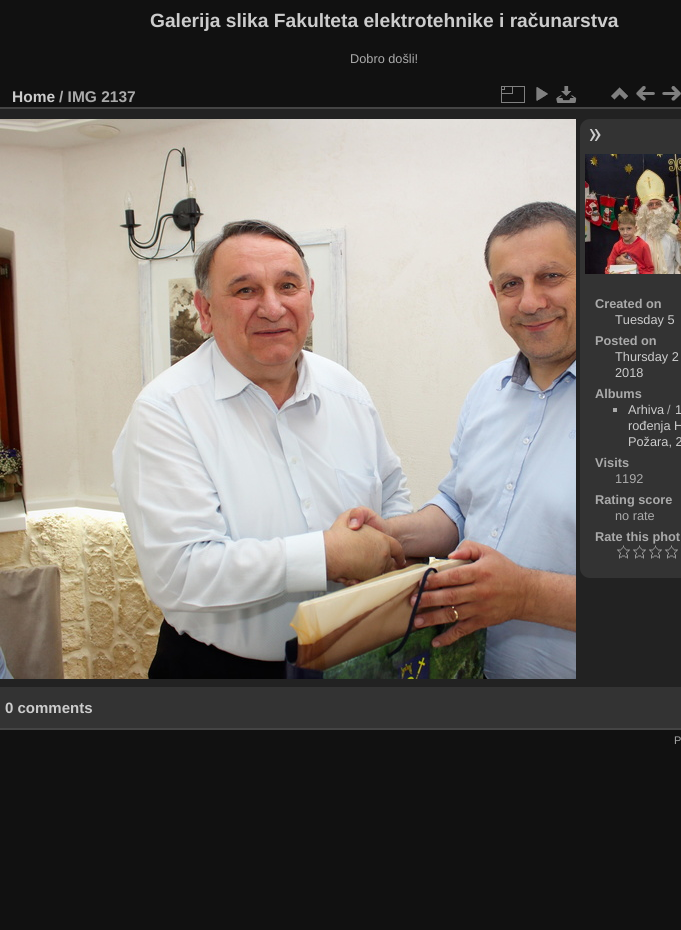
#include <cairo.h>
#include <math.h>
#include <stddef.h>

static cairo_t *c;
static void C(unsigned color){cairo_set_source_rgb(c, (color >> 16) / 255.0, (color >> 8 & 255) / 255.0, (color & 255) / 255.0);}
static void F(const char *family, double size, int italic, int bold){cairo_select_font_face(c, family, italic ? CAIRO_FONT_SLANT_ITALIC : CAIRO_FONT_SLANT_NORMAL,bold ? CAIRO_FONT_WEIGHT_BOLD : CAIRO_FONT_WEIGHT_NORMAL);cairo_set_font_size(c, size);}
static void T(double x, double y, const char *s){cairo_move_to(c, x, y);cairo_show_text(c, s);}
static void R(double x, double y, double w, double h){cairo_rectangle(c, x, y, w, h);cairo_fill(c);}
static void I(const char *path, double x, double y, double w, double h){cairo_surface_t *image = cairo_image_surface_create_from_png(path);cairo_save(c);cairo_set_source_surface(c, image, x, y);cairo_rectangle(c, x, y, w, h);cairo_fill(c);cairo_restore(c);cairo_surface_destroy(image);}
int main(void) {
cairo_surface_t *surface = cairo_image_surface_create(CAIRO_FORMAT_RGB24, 681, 930);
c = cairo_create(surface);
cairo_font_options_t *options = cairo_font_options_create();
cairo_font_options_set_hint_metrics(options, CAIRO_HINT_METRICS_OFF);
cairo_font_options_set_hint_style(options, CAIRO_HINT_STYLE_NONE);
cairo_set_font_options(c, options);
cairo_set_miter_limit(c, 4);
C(0x111111);
cairo_paint(c);
F("Liberation Sans",19.2,0,1);
C(0xcccccc);
T(150,27,"Galerija slika Fakulteta elektrotehnike i računarstva");
F("Liberation Sans",12.75,0,0);
C(0xaaaaaa);
T(350,63,"Dobro došli!");
C(0x222222);
R(0,109,681,578);
C(0x444444);
R(0,728,681,2);
R(0,107,681,2);
F("Liberation Sans",15.5,0,1);
C(0xcccccc);
T(12,102,"Home");
C(0xaaaaaa);
T(59,102,"/ IMG 2137");
I("1.png",501,86,24,17);
I("2.png",536,87,12,14);
I("3.png",556,86,21,17);
I("4.png",611,87,17,13);
I("5.png",636,86,19,15);
I("6.png",662,86,19,15);
I("7.png",0,119,576,560);
C(0x333333);
cairo_new_path(c);
cairo_move_to(c,590,119);
cairo_line_to(c,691,119);
cairo_line_to(c,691,578);
cairo_line_to(c,590,578);
cairo_curve_to(c,584.5,578,580,573.5,580,568);
cairo_line_to(c,580,129);
cairo_curve_to(c,580,123.5,584.5,119,590,119);
cairo_close_path(c);
cairo_fill(c);
I("8.png",589,129,12,12);
I("9.png",585,154,96,120);
F("Liberation Sans",12.75,0,1);
C(0xaaaaaa);
T(595,308,"Created on");
F("Liberation Sans",12.75,0,0);
C(0xcccccc);
T(615,324,"Tuesday 5");
F("Liberation Sans",12.75,0,1);
C(0xaaaaaa);
T(595,345,"Posted on");
F("Liberation Sans",12.75,0,0);
C(0xcccccc);
T(615,361,"Thursday 2");
T(615,377,"2018");
F("Liberation Sans",12.75,0,1);
C(0xaaaaaa);
T(595,398,"Albums");
R(613,408,4,4);
F("Liberation Sans",12.75,0,0);
C(0xcccccc);
T(628,414,"Arhiva");
C(0xaaaaaa);
T(667,414,"/");
C(0xcccccc);
T(675,414,"1");
T(628,430,"rođenja H");
T(628,446,"Požara, 2");
F("Liberation Sans",12.75,0,1);
C(0xaaaaaa);
T(595,467,"Visits");
F("Liberation Sans",12.75,0,0);
T(615,483,"1192");
F("Liberation Sans",12.75,0,1);
T(595,504,"Rating score");
F("Liberation Sans",12.75,0,0);
T(615,520,"no rate");
F("Liberation Sans",12.75,0,1);
T(595,541,"Rate this phot");
I("10.png",617,545,13,14);
I("10.png",633,545,13,14);
I("10.png",649,545,13,14);
I("10.png",665,545,13,14);
C(0x333333);
R(0,687,681,41);
F("Liberation Sans",15,0,1);
C(0xcccccc);
T(5,713,"0 comments");
F("Liberation Sans",11,0,0);
C(0xaaaaaa);
T(674,744,"P");
cairo_surface_write_to_png(surface, "o.png");
cairo_font_options_destroy(options);
cairo_destroy(c);
cairo_surface_destroy(surface);
return 0;
}
